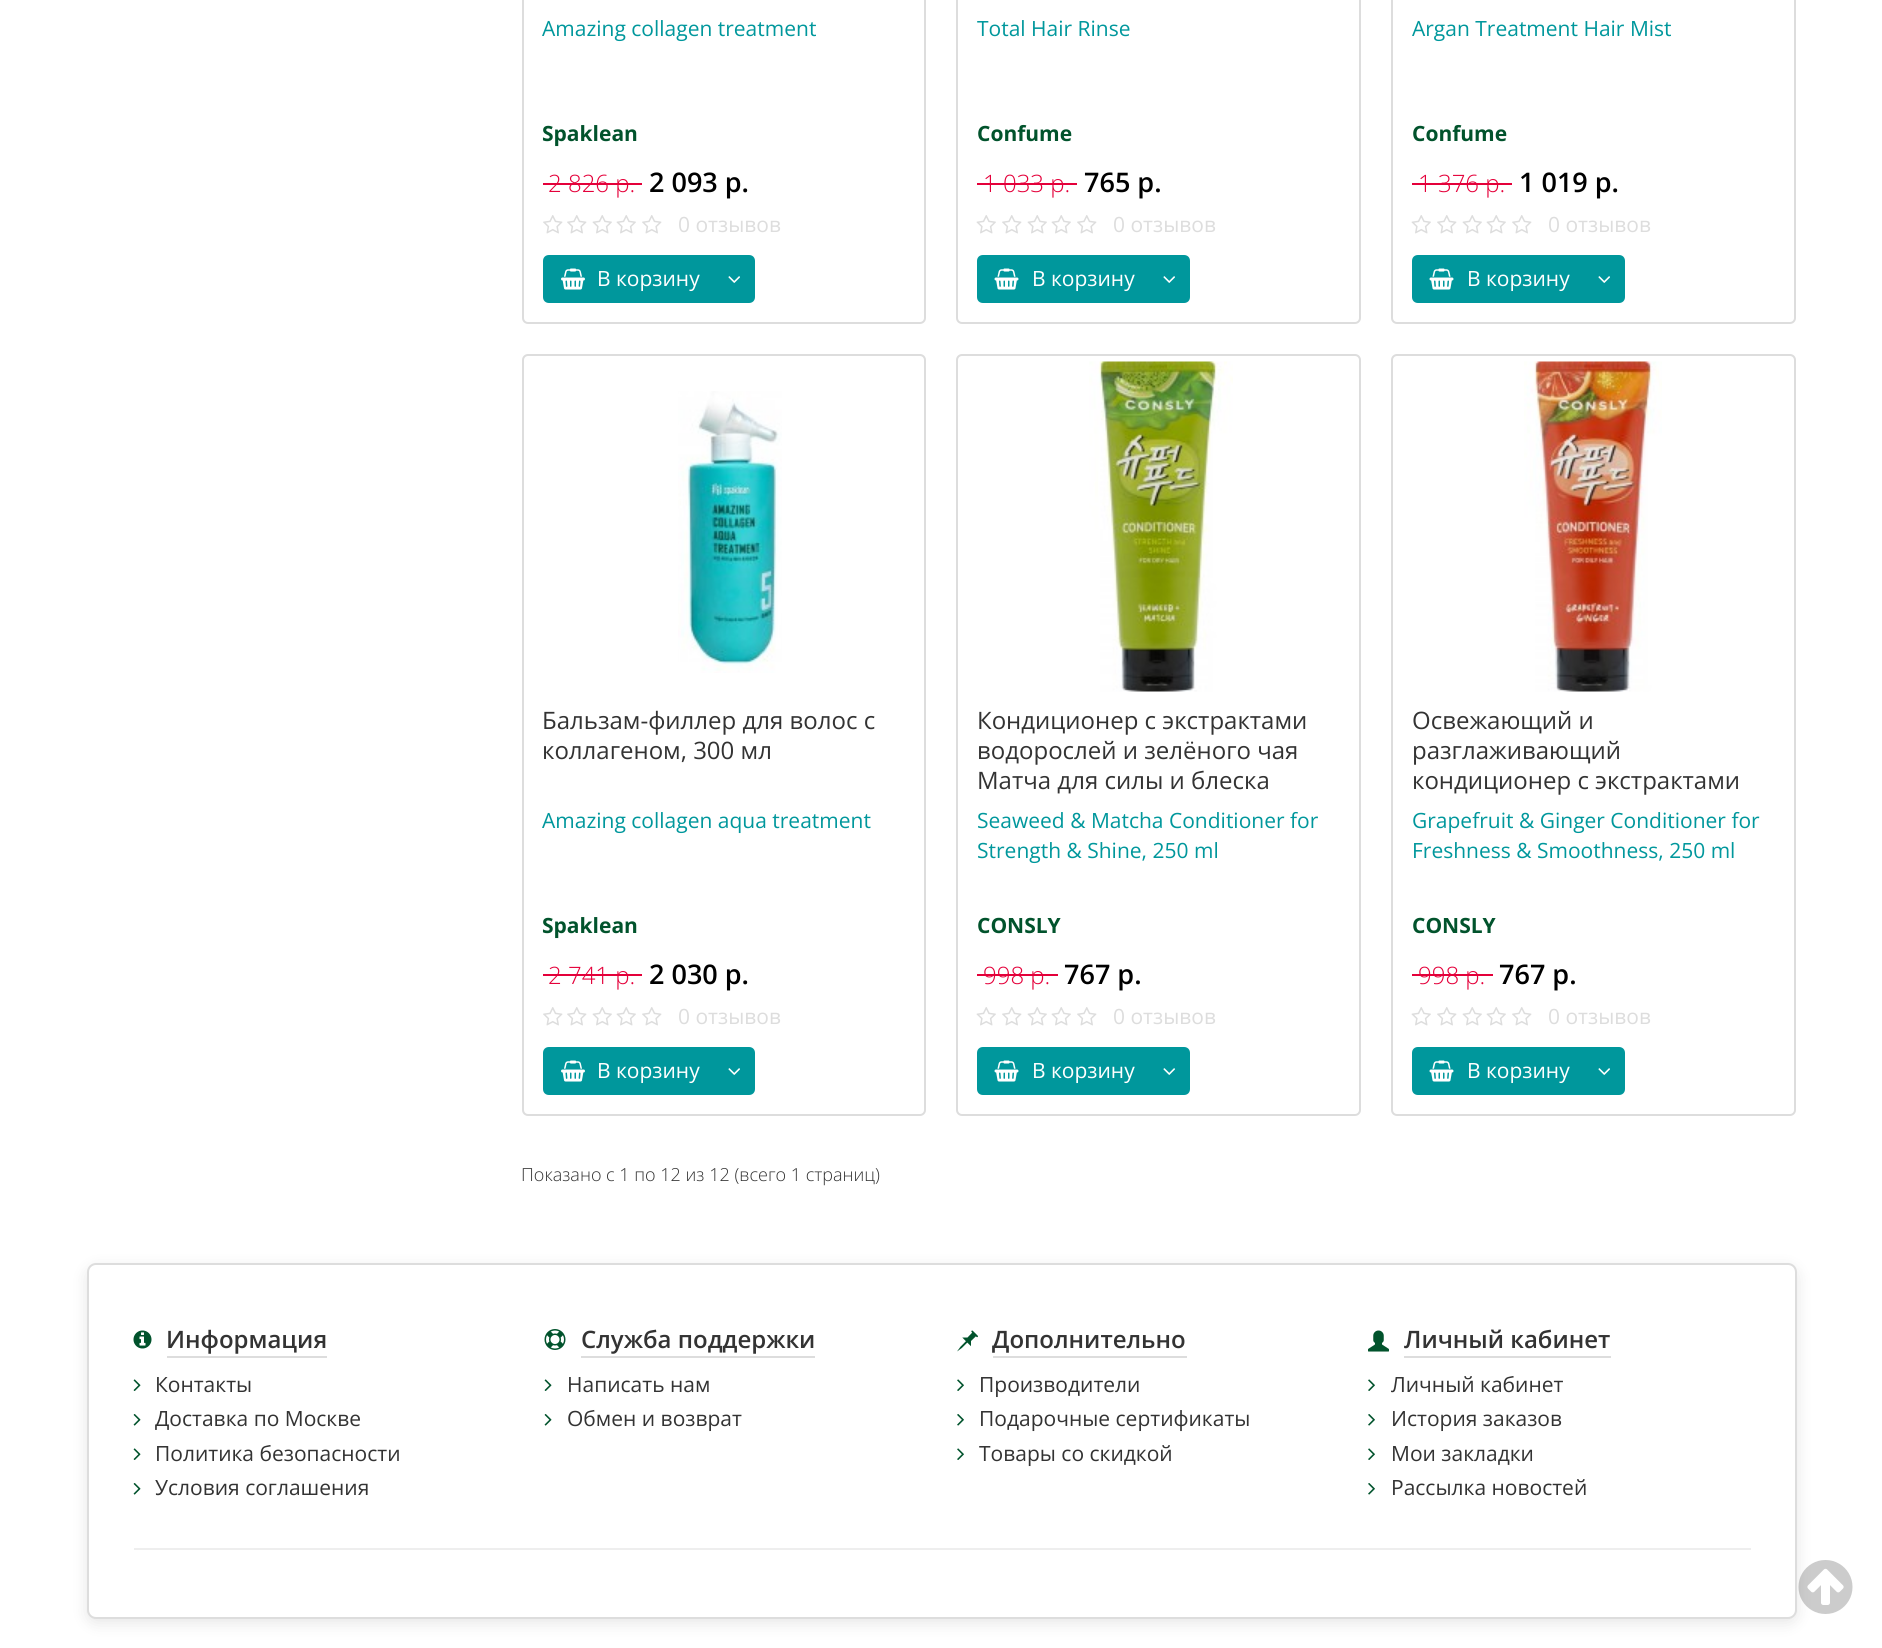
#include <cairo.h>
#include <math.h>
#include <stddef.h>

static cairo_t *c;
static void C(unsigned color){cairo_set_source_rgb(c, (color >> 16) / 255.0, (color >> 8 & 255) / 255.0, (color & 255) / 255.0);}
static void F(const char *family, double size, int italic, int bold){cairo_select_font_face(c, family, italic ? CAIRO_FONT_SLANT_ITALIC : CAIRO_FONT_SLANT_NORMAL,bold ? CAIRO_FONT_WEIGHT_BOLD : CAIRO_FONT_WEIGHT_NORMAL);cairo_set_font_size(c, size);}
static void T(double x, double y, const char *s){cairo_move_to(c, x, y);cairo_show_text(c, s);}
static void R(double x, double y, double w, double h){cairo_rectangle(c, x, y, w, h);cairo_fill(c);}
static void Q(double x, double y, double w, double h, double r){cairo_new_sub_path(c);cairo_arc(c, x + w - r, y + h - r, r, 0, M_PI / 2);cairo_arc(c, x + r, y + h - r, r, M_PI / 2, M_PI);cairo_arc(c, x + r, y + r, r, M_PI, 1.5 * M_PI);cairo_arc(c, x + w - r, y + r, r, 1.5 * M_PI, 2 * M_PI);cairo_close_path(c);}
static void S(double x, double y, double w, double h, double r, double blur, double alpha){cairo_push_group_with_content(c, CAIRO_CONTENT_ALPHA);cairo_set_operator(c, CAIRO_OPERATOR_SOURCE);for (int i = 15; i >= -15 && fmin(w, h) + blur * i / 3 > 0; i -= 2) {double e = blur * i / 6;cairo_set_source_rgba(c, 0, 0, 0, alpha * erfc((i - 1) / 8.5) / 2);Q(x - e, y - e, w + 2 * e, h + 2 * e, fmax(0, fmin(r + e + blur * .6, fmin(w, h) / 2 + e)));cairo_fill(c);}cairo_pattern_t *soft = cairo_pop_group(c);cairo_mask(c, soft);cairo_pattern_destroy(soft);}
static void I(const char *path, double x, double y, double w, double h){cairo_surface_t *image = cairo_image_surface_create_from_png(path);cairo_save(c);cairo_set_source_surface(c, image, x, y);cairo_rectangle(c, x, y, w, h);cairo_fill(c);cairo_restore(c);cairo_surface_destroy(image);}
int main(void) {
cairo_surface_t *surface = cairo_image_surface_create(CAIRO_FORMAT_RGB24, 1882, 1648);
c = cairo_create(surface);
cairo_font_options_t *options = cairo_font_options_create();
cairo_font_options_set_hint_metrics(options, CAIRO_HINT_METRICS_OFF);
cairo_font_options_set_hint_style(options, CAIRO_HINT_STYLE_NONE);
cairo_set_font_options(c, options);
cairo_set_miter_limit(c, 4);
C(0xffffff);
cairo_paint(c);
Q(523,-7,402,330,5);
C(0xdddddd);
cairo_stroke(c);
F("Open Sans",21,0,0);
C(0x00979c);
T(542,36,"Amazing collagen treatment");
F("Open Sans",21,0,1);
C(0x01532c);
T(542,141,"Spaklean");
F("Open Sans Light",24,0,0);
C(0xe4003a);
T(548,192,"2 826 р.");
R(543,183,99,2);
F("Open Sans SemiBold",27,0,0);
C(0x000000);
T(649,192,"2 093 р.");
I("1.png",543,215,20,19);
I("1.png",567,215,20,19);
I("2.png",592,215,20,19);
I("2.png",616,215,20,19);
I("1.png",642,215,20,19);
F("Open Sans",21,0,0);
C(0xdddddd);
T(678,232,"0 отзывов");
C(0x00979c);
cairo_new_path(c);
cairo_move_to(c,549,256);
cairo_line_to(c,715,256);
cairo_line_to(c,715,302);
cairo_line_to(c,549,302);
cairo_curve_to(c,546,302,544,300,544,297);
cairo_line_to(c,544,261);
cairo_curve_to(c,544,258,546,256,549,256);
cairo_close_path(c);
cairo_fill_preserve(c);
cairo_stroke(c);
I("3.png",561,268,24,22);
C(0xffffff);
T(597,286,"В корзину");
C(0x00979c);
cairo_new_path(c);
cairo_move_to(c,715,256);
cairo_line_to(c,749,256);
cairo_curve_to(c,752,256,754,258,754,261);
cairo_line_to(c,754,297);
cairo_curve_to(c,754,300,752,302,749,302);
cairo_line_to(c,715,302);
cairo_close_path(c);
cairo_fill_preserve(c);
cairo_stroke(c);
I("4.png",728,276,12,7);
Q(957,-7,403,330,5);
C(0xdddddd);
cairo_stroke(c);
C(0x00979c);
T(977,36,"Total Hair Rinse");
F("Open Sans",21,0,1);
C(0x01532c);
T(977,141,"Confume");
F("Open Sans Light",24,0,0);
C(0xe4003a);
T(983,192,"1 033 р.");
R(977,183,100,2);
F("Open Sans SemiBold",27,0,0);
C(0x000000);
T(1084,192,"765 р.");
I("2.png",976,215,20,19);
I("1.png",1002,215,20,19);
I("2.png",1027,215,20,19);
I("2.png",1051,215,20,19);
I("1.png",1077,215,20,19);
F("Open Sans",21,0,0);
C(0xdddddd);
T(1113,232,"0 отзывов");
C(0x00979c);
cairo_new_path(c);
cairo_move_to(c,983,256);
cairo_line_to(c,1150,256);
cairo_line_to(c,1150,302);
cairo_line_to(c,983,302);
cairo_curve_to(c,980,302,978,300,978,297);
cairo_line_to(c,978,261);
cairo_curve_to(c,978,258,980,256,983,256);
cairo_close_path(c);
cairo_fill_preserve(c);
cairo_stroke(c);
I("5.png",994,268,25,22);
C(0xffffff);
T(1032,286,"В корзину");
C(0x00979c);
cairo_new_path(c);
cairo_move_to(c,1150,256);
cairo_line_to(c,1184,256);
cairo_curve_to(c,1187,256,1189,258,1189,261);
cairo_line_to(c,1189,297);
cairo_curve_to(c,1189,300,1187,302,1184,302);
cairo_line_to(c,1150,302);
cairo_close_path(c);
cairo_fill_preserve(c);
cairo_stroke(c);
I("4.png",1163,276,12,7);
Q(1392,-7,403,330,5);
C(0xdddddd);
cairo_stroke(c);
C(0x00979c);
T(1412,36,"Argan Treatment Hair Mist");
F("Open Sans",21,0,1);
C(0x01532c);
T(1412,141,"Confume");
F("Open Sans Light",24,0,0);
C(0xe4003a);
T(1418,192,"1 376 р.");
R(1412,183,100,2);
F("Open Sans SemiBold",27,0,0);
C(0x000000);
T(1519,192,"1 019 р.");
I("2.png",1411,215,20,19);
I("1.png",1437,215,20,19);
I("2.png",1462,215,20,19);
I("2.png",1486,215,20,19);
I("1.png",1512,215,20,19);
F("Open Sans",21,0,0);
C(0xdddddd);
T(1548,232,"0 отзывов");
C(0x00979c);
cairo_new_path(c);
cairo_move_to(c,1418,256);
cairo_line_to(c,1585,256);
cairo_line_to(c,1585,302);
cairo_line_to(c,1418,302);
cairo_curve_to(c,1415,302,1413,300,1413,297);
cairo_line_to(c,1413,261);
cairo_curve_to(c,1413,258,1415,256,1418,256);
cairo_close_path(c);
cairo_fill_preserve(c);
cairo_stroke(c);
I("5.png",1429,268,25,22);
C(0xffffff);
T(1467,286,"В корзину");
C(0x00979c);
cairo_new_path(c);
cairo_move_to(c,1585,256);
cairo_line_to(c,1619,256);
cairo_curve_to(c,1622,256,1624,258,1624,261);
cairo_line_to(c,1624,297);
cairo_curve_to(c,1624,300,1622,302,1619,302);
cairo_line_to(c,1585,302);
cairo_close_path(c);
cairo_fill_preserve(c);
cairo_stroke(c);
I("4.png",1598,276,12,7);
Q(523,355,402,760,5);
C(0xdddddd);
cairo_stroke(c);
I("6.png",678,391,104,282);
F("Open Sans",24,0,0);
C(0x333333);
T(542,729,"Бальзам-филлер для волос с");
T(542,759,"коллагеном, 300 мл");
F("Open Sans",21,0,0);
C(0x00979c);
T(542,828,"Amazing collagen aqua treatment");
F("Open Sans",21,0,1);
C(0x01532c);
T(542,933,"Spaklean");
F("Open Sans Light",24,0,0);
C(0xe4003a);
T(548,984,"2 741 р.");
R(543,974,99,2);
F("Open Sans SemiBold",27,0,0);
C(0x000000);
T(649,984,"2 030 р.");
I("1.png",543,1007,20,19);
I("1.png",567,1007,20,19);
I("2.png",592,1007,20,19);
I("2.png",616,1007,20,19);
I("1.png",642,1007,20,19);
F("Open Sans",21,0,0);
C(0xdddddd);
T(678,1024,"0 отзывов");
C(0x00979c);
cairo_new_path(c);
cairo_move_to(c,549,1048);
cairo_line_to(c,715,1048);
cairo_line_to(c,715,1094);
cairo_line_to(c,549,1094);
cairo_curve_to(c,546,1094,544,1092,544,1089);
cairo_line_to(c,544,1053);
cairo_curve_to(c,544,1050,546,1048,549,1048);
cairo_close_path(c);
cairo_fill_preserve(c);
cairo_stroke(c);
I("3.png",561,1060,24,22);
C(0xffffff);
T(597,1078,"В корзину");
C(0x00979c);
cairo_new_path(c);
cairo_move_to(c,715,1048);
cairo_line_to(c,749,1048);
cairo_curve_to(c,752,1048,754,1050,754,1053);
cairo_line_to(c,754,1089);
cairo_curve_to(c,754,1092,752,1094,749,1094);
cairo_line_to(c,715,1094);
cairo_close_path(c);
cairo_fill_preserve(c);
cairo_stroke(c);
I("4.png",728,1068,12,7);
Q(957,355,403,760,5);
C(0xdddddd);
cairo_stroke(c);
I("7.png",1089,361,144,331);
F("Open Sans",24,0,0);
C(0x333333);
T(977,729,"Кондиционер с экстрактами");
T(977,759,"водорослей и зелёного чая");
T(977,789,"Матча для силы и блеска");
F("Open Sans",21,0,0);
C(0x00979c);
T(977,828,"Seaweed & Matcha Conditioner for");
T(977,858,"Strength & Shine, 250 ml");
F("Open Sans",21,0,1);
C(0x01532c);
T(977,933,"CONSLY");
F("Open Sans Light",24,0,0);
C(0xe4003a);
T(983,984,"998 р.");
R(977,974,81,2);
F("Open Sans SemiBold",27,0,0);
C(0x000000);
T(1064,984,"767 р.");
I("2.png",976,1007,20,19);
I("1.png",1002,1007,20,19);
I("2.png",1027,1007,20,19);
I("2.png",1051,1007,20,19);
I("1.png",1077,1007,20,19);
F("Open Sans",21,0,0);
C(0xdddddd);
T(1113,1024,"0 отзывов");
C(0x00979c);
cairo_new_path(c);
cairo_move_to(c,983,1048);
cairo_line_to(c,1150,1048);
cairo_line_to(c,1150,1094);
cairo_line_to(c,983,1094);
cairo_curve_to(c,980,1094,978,1092,978,1089);
cairo_line_to(c,978,1053);
cairo_curve_to(c,978,1050,980,1048,983,1048);
cairo_close_path(c);
cairo_fill_preserve(c);
cairo_stroke(c);
I("5.png",994,1060,25,22);
C(0xffffff);
T(1032,1078,"В корзину");
C(0x00979c);
cairo_new_path(c);
cairo_move_to(c,1150,1048);
cairo_line_to(c,1184,1048);
cairo_curve_to(c,1187,1048,1189,1050,1189,1053);
cairo_line_to(c,1189,1089);
cairo_curve_to(c,1189,1092,1187,1094,1184,1094);
cairo_line_to(c,1150,1094);
cairo_close_path(c);
cairo_fill_preserve(c);
cairo_stroke(c);
I("4.png",1163,1068,12,7);
Q(1392,355,403,760,5);
C(0xdddddd);
cairo_stroke(c);
I("8.png",1524,361,138,331);
F("Open Sans",24,0,0);
C(0x333333);
T(1412,729,"Освежающий и");
T(1412,759,"разглаживающий");
T(1412,789,"кондиционер с экстрактами");
F("Open Sans",21,0,0);
C(0x00979c);
T(1412,828,"Grapefruit & Ginger Conditioner for");
T(1412,858,"Freshness & Smoothness, 250 ml");
F("Open Sans",21,0,1);
C(0x01532c);
T(1412,933,"CONSLY");
F("Open Sans Light",24,0,0);
C(0xe4003a);
T(1418,984,"998 р.");
R(1412,974,81,2);
F("Open Sans SemiBold",27,0,0);
C(0x000000);
T(1499,984,"767 р.");
I("2.png",1411,1007,20,19);
I("1.png",1437,1007,20,19);
I("2.png",1462,1007,20,19);
I("2.png",1486,1007,20,19);
I("1.png",1512,1007,20,19);
F("Open Sans",21,0,0);
C(0xdddddd);
T(1548,1024,"0 отзывов");
C(0x00979c);
cairo_new_path(c);
cairo_move_to(c,1418,1048);
cairo_line_to(c,1585,1048);
cairo_line_to(c,1585,1094);
cairo_line_to(c,1418,1094);
cairo_curve_to(c,1415,1094,1413,1092,1413,1089);
cairo_line_to(c,1413,1053);
cairo_curve_to(c,1413,1050,1415,1048,1418,1048);
cairo_close_path(c);
cairo_fill_preserve(c);
cairo_stroke(c);
I("5.png",1429,1060,25,22);
C(0xffffff);
T(1467,1078,"В корзину");
C(0x00979c);
cairo_new_path(c);
cairo_move_to(c,1585,1048);
cairo_line_to(c,1619,1048);
cairo_curve_to(c,1622,1048,1624,1050,1624,1053);
cairo_line_to(c,1624,1089);
cairo_curve_to(c,1624,1092,1622,1094,1619,1094);
cairo_line_to(c,1585,1094);
cairo_close_path(c);
cairo_fill_preserve(c);
cairo_stroke(c);
I("4.png",1598,1068,12,7);
F("Open Sans Light",18,0,0);
C(0x333333);
T(521,1181,"Показано с 1 по 12 из 12 (всего 1 страниц)");
C(0x000000);
S(87,1268,1710,355,9,7.5,.1);
C(0xffffff);
Q(88,1264,1708,354,8);
cairo_fill_preserve(c);
C(0xdddddd);
cairo_stroke(c);
I("9.png",133,1330,19,19);
F("Open Sans SemiBold",24,0,0);
C(0x333333);
T(166,1348,"Информация");
C(0xdddddd);
R(167,1356,160,2);
I("10.png",133,1379,8,12);
F("Open Sans",21,0,0);
C(0x333333);
T(155,1392,"Контакты");
I("11.png",133,1414,8,12);
T(155,1426,"Доставка по Москве");
I("10.png",133,1448,8,12);
T(155,1461,"Политика безопасности");
I("11.png",133,1483,8,12);
T(155,1495,"Условия соглашения");
I("12.png",544,1329,22,21);
F("Open Sans SemiBold",24,0,0);
T(581,1348,"Служба поддержки");
C(0xdddddd);
R(581,1356,234,2);
I("10.png",544,1379,8,12);
F("Open Sans",21,0,0);
C(0x333333);
T(567,1392,"Написать нам");
I("11.png",544,1414,8,12);
T(567,1426,"Обмен и возврат");
I("13.png",957,1330,21,22);
F("Open Sans SemiBold",24,0,0);
T(992,1348,"Дополнительно");
C(0xdddddd);
R(993,1356,194,2);
I("14.png",957,1379,7,12);
F("Open Sans",21,0,0);
C(0x333333);
T(979,1392,"Производители");
I("15.png",957,1414,7,12);
T(979,1426,"Подарочные сертификаты");
I("14.png",957,1448,7,12);
T(979,1461,"Товары со скидкой");
I("16.png",1368,1330,21,22);
F("Open Sans SemiBold",24,0,0);
T(1404,1348,"Личный кабинет");
C(0xdddddd);
R(1404,1356,207,2);
I("14.png",1368,1379,7,12);
F("Open Sans",21,0,0);
C(0x333333);
T(1391,1392,"Личный кабинет");
I("15.png",1368,1414,7,12);
T(1391,1426,"История заказов");
I("14.png",1368,1448,7,12);
T(1391,1461,"Мои закладки");
I("15.png",1368,1483,7,12);
T(1391,1495,"Рассылка новостей");
C(0xeeeeee);
R(134,1548,1617,2);
I("17.png",1798,1560,55,54);
cairo_surface_write_to_png(surface, "o.png");
cairo_font_options_destroy(options);
cairo_destroy(c);
cairo_surface_destroy(surface);
return 0;
}
